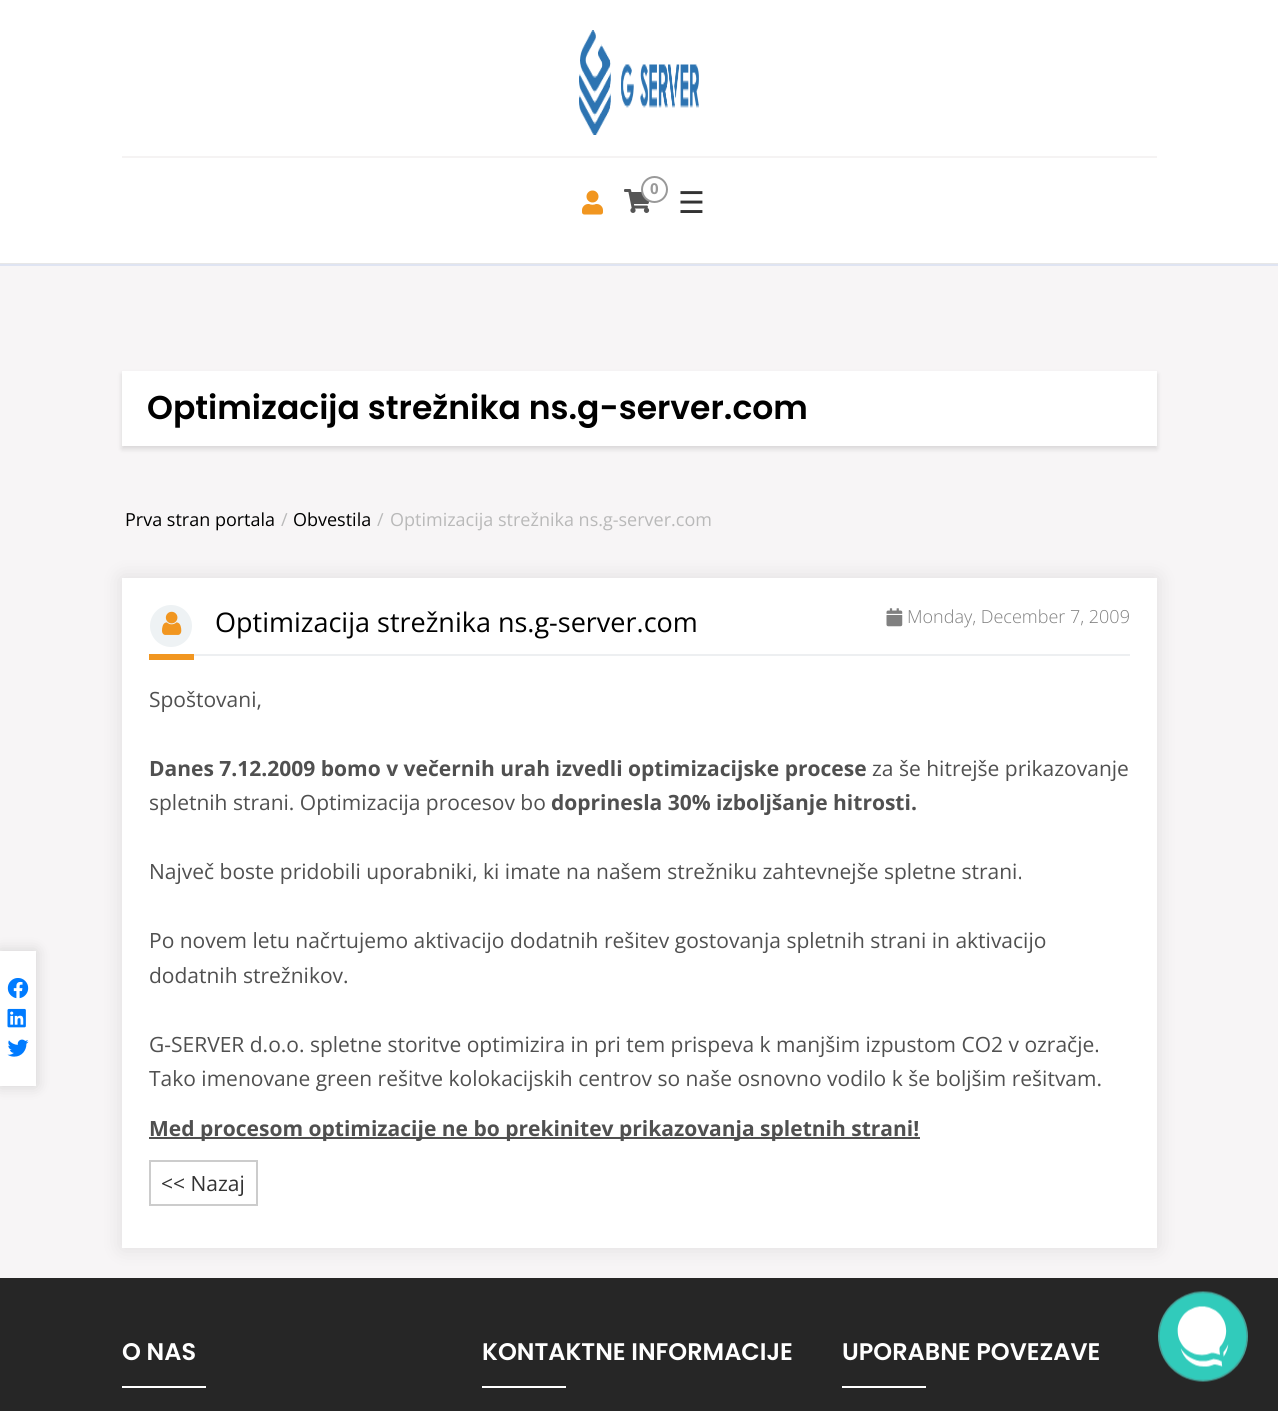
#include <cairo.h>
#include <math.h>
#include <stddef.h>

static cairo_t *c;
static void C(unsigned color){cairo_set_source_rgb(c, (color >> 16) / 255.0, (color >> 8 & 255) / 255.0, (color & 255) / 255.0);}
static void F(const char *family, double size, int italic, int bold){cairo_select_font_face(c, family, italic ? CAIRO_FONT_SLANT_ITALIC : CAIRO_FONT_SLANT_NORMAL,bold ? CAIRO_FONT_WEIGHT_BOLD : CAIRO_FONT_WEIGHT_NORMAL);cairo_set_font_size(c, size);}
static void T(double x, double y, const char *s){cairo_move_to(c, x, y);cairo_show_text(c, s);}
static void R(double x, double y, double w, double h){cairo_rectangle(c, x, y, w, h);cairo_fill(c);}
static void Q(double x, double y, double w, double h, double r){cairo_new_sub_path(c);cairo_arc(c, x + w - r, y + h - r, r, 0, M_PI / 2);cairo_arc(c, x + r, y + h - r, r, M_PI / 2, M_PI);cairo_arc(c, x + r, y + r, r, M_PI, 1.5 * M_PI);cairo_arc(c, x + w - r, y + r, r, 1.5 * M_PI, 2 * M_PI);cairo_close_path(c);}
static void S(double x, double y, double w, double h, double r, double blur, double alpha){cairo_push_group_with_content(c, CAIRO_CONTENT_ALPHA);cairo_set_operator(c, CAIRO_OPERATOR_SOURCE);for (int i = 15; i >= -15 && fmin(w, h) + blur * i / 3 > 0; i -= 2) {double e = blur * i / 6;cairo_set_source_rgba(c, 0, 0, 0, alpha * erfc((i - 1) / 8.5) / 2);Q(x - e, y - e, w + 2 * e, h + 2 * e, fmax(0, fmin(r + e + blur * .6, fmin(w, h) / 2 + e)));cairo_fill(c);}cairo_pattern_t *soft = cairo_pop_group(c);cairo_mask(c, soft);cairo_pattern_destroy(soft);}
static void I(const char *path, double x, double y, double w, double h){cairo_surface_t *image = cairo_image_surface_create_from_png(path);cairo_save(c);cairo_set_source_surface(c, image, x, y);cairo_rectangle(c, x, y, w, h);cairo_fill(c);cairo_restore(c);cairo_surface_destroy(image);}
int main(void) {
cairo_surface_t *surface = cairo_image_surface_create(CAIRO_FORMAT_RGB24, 1278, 1411);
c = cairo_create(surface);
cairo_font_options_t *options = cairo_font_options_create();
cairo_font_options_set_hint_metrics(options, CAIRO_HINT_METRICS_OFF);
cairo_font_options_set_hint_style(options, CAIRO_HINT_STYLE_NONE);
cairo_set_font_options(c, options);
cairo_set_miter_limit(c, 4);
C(0xffffff);
cairo_paint(c);
I("1.png",579,30,120,105);
C(0xf5f3f3);
R(122,156,1035,2);
I("2.png",582,190,21,25);
I("3.png",624,189,26,24);
C(0xffffff);
cairo_arc(c,654.5,189.5,12.5,0,2 * M_PI);
cairo_fill_preserve(c);
C(0x999999);
cairo_stroke(c);
F("Open Sans",15,0,1);
T(650,194,"0");
F("DejaVu Sans",30,0,0);
C(0x333333);
T(678,213,"☰");
C(0xe7e7e7);
R(0,263,1278,1);
C(0xdfe4f2);
R(0,264,1278,2);
C(0xf7f5f6);
R(0,266,1278,1012);
C(0x000000);
S(0,951,36,135,0,7.5,.15);
C(0xffffff);
R(0,951,36,135);
I("4.png",7,978,22,21);
I("5.png",7,1008,19,20);
I("6.png",7,1039,22,18);
C(0x000000);
S(122,374,1035,75,0,2.5,.13);
C(0xffffff);
R(122,371,1035,75);
F("Poppins SemiBold",33,0,0);
C(0x000000);
T(147,419,"Optimizacija strežnika ns.g-server.com");
F("Open Sans",18,0,0);
T(125,526,"Prva stran portala");
C(0xb9b9b9);
T(281,526,"/");
C(0x000000);
T(293,526,"Obvestila");
C(0xb9b9b9);
T(377,526,"/");
T(390,526,"Optimizacija strežnika ns.g-server.com");
C(0x262626);
R(0,1278,1278,133);
C(0x000000);
S(122,578,1035,670,0,10,.1);
C(0xffffff);
R(122,578,1035,670);
C(0xedeff1);
R(194,654,936,2);
C(0xeef2f4);
cairo_arc(c,171,626,21,0,2 * M_PI);
cairo_fill(c);
I("7.png",162,611,20,24);
F("Open Sans",27,0,0);
C(0x000000);
T(215,632,"Optimizacija strežnika ns.g-server.com");
I("8.png",886,608,17,19);
F("Open Sans Light",18,0,0);
C(0x808080);
T(907,623,"Monday, December 7, 2009");
C(0xf19620);
R(149,654,45,6);
F("Open Sans",21,0,0);
C(0x505050);
T(149,707,"Spoštovani,");
F("Open Sans",21,0,1);
T(149,776,"Danes 7.12.2009 bomo v večernih urah izvedli optimizacijske procese");
F("Open Sans",21,0,0);
T(872,776,"za še hitrejše prikazovanje");
T(149,810,"spletnih strani. Optimizacija procesov bo");
F("Open Sans",21,0,1);
T(551,810,"doprinesla 30% izboljšanje hitrosti.");
F("Open Sans",21,0,0);
T(149,879,"Največ boste pridobili uporabniki, ki imate na našem strežniku zahtevnejše spletne strani.");
T(149,948,"Po novem letu načrtujemo aktivacijo dodatnih rešitev gostovanja spletnih strani in aktivacijo");
T(149,983,"dodatnih strežnikov.");
T(149,1052,"G-SERVER d.o.o. spletne storitve optimizira in pri tem prispeva k manjšim izpustom CO2 v ozračje.");
T(149,1086,"Tako imenovane green rešitve kolokacijskih centrov so naše osnovno vodilo k še boljšim rešitvam.");
R(149,1137,771,2);
F("Open Sans",21,0,1);
T(149,1136,"Med procesom optimizacije ne bo prekinitev prikazovanja spletnih strani!");
cairo_rectangle(c,150,1161,107,44);
C(0xcccccc);
cairo_stroke(c);
F("Open Sans",21,0,0);
C(0x333333);
T(161,1191,"<< Nazaj");
F("Poppins SemiBold",24,0,0);
C(0xffffff);
T(122,1360,"O NAS");
R(122,1386,84,2);
T(482,1360,"KONTAKTNE INFORMACIJE");
R(482,1386,84,2);
T(842,1360,"UPORABNE POVEZAVE");
R(842,1386,84,2);
I("9.png",1158,1291,90,91);
cairo_surface_write_to_png(surface, "o.png");
cairo_font_options_destroy(options);
cairo_destroy(c);
cairo_surface_destroy(surface);
return 0;
}
